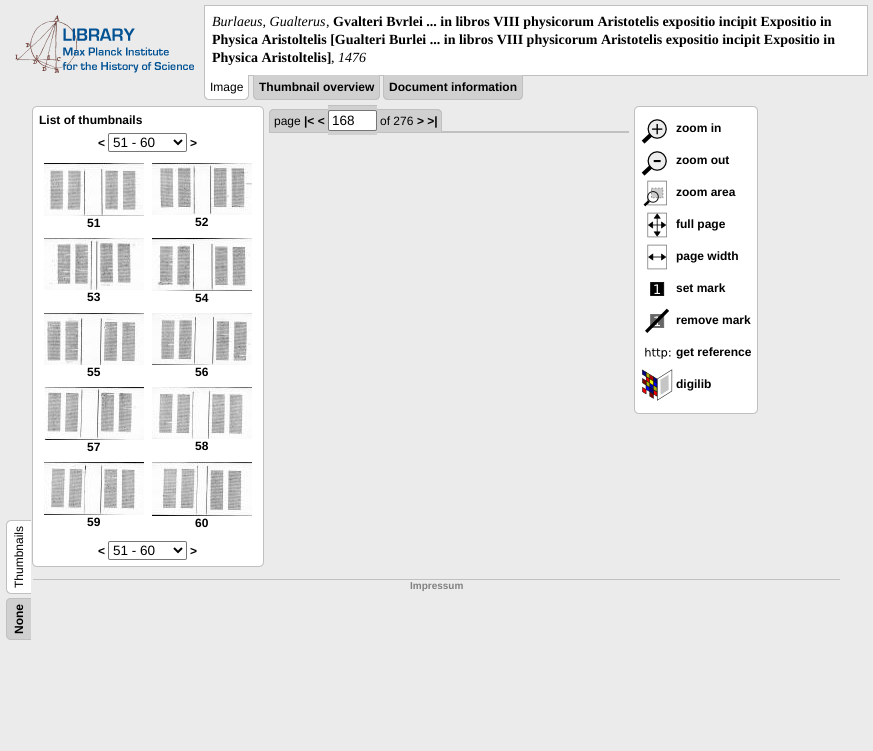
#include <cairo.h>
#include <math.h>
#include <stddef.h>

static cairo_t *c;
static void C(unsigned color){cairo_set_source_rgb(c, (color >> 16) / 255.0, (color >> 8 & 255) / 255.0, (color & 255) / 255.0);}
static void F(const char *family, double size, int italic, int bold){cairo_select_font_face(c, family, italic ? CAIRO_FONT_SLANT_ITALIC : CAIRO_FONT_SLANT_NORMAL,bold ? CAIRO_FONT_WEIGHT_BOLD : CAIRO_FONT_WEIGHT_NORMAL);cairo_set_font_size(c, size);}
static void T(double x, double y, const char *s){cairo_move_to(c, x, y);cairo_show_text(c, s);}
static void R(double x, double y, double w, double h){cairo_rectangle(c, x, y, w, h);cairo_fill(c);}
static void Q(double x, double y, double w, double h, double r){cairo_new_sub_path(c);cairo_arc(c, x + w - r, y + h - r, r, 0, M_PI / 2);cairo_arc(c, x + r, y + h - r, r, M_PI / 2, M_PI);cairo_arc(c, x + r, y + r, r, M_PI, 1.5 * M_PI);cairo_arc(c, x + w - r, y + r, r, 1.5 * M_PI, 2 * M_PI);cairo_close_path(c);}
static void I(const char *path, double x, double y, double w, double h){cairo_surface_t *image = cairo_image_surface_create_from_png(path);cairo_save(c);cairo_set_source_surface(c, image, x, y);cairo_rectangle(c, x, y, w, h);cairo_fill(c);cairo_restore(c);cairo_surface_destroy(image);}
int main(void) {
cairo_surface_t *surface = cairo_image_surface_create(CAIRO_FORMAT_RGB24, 873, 751);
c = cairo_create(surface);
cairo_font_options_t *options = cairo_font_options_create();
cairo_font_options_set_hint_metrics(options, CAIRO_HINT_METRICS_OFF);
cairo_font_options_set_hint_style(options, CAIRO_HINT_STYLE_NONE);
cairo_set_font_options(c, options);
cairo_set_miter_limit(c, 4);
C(0xebebeb);
cairo_paint(c);
I("1.png",15,15,179,58);
C(0xffffff);
cairo_rectangle(c,204.5,5.5,663,70);
cairo_fill_preserve(c);
C(0xc0c0c0);
cairo_set_line_width(c,1);
cairo_stroke(c);
F("Liberation Serif",14,1,0);
C(0x000000);
T(212,26,"Burlaeus, Gualterus");
F("Liberation Serif",14,0,0);
T(326,26,",");
F("Liberation Serif",14,0,1);
T(333,26,"Gvalteri Bvrlei ... in libros VIII physicorum Aristotelis expositio incipit Expositio in");
T(212,44,"Physica Aristoltelis [Gualteri Burlei ... in libros VIII physicorum Aristotelis expositio incipit Expositio in");
T(212,62,"Physica Aristoltelis]");
F("Liberation Serif",14,0,0);
T(331,62,",");
F("Liberation Serif",14,1,0);
T(338,62,"1476");
C(0xffffff);
cairo_new_path(c);
cairo_move_to(c,204,75);
cairo_line_to(c,249,75);
cairo_line_to(c,249,95);
cairo_curve_to(c,249,98,247,100,244,100);
cairo_line_to(c,209,100);
cairo_curve_to(c,206,100,204,98,204,95);
cairo_close_path(c);
cairo_fill(c);
C(0xc0c0c0);
cairo_set_fill_rule(c,CAIRO_FILL_RULE_EVEN_ODD);
cairo_new_path(c);
cairo_move_to(c,204,75);
cairo_line_to(c,249,75);
cairo_line_to(c,249,95);
cairo_curve_to(c,249,98,247,100,244,100);
cairo_line_to(c,209,100);
cairo_curve_to(c,206,100,204,98,204,95);
cairo_close_path(c);
cairo_move_to(c,205,75);
cairo_line_to(c,248,75);
cairo_line_to(c,248,95);
cairo_curve_to(c,248,97,246,99,244,99);
cairo_line_to(c,209,99);
cairo_curve_to(c,207,99,205,97,205,95);
cairo_close_path(c);
cairo_fill(c);
F("Liberation Sans",12,0,0);
C(0x000000);
T(210,91,"Image");
C(0xd0d0d0);
cairo_new_path(c);
cairo_move_to(c,253,75);
cairo_line_to(c,380,75);
cairo_line_to(c,380,95);
cairo_curve_to(c,380,98,378,100,375,100);
cairo_line_to(c,258,100);
cairo_curve_to(c,255,100,253,98,253,95);
cairo_close_path(c);
cairo_fill(c);
C(0xc0c0c0);
cairo_new_path(c);
cairo_move_to(c,253,75);
cairo_line_to(c,380,75);
cairo_line_to(c,380,95);
cairo_curve_to(c,380,98,378,100,375,100);
cairo_line_to(c,258,100);
cairo_curve_to(c,255,100,253,98,253,95);
cairo_close_path(c);
cairo_move_to(c,254,75);
cairo_line_to(c,379,75);
cairo_line_to(c,379,95);
cairo_curve_to(c,379,97,377,99,375,99);
cairo_line_to(c,258,99);
cairo_curve_to(c,256,99,254,97,254,95);
cairo_close_path(c);
cairo_fill(c);
F("Liberation Sans",12,0,1);
C(0x000000);
T(259,91,"Thumbnail overview");
C(0xd0d0d0);
cairo_new_path(c);
cairo_move_to(c,383,75);
cairo_line_to(c,523,75);
cairo_line_to(c,523,95);
cairo_curve_to(c,523,98,521,100,518,100);
cairo_line_to(c,388,100);
cairo_curve_to(c,385,100,383,98,383,95);
cairo_close_path(c);
cairo_fill(c);
C(0xc0c0c0);
cairo_new_path(c);
cairo_move_to(c,383,75);
cairo_line_to(c,523,75);
cairo_line_to(c,523,95);
cairo_curve_to(c,523,98,521,100,518,100);
cairo_line_to(c,388,100);
cairo_curve_to(c,385,100,383,98,383,95);
cairo_close_path(c);
cairo_move_to(c,384,75);
cairo_line_to(c,522,75);
cairo_line_to(c,522,95);
cairo_curve_to(c,522,97,520,99,518,99);
cairo_line_to(c,388,99);
cairo_curve_to(c,386,99,384,97,384,95);
cairo_close_path(c);
cairo_fill(c);
C(0x000000);
T(389,91,"Document information");
C(0xffffff);
Q(32.5,106.5,231,460,4.5);
cairo_fill_preserve(c);
C(0xc0c0c0);
cairo_stroke(c);
C(0x000000);
T(39,124,"List of thumbnails");
T(98,147,"<");
Q(108.5,133.5,78,18,1.5);
C(0x767676);
cairo_stroke(c);
cairo_new_path(c);
cairo_move_to(c,174,140);
cairo_line_to(c,178,144);
cairo_line_to(c,182,140);
C(0x000000);
cairo_set_line_width(c,2);
cairo_stroke(c);
F("Liberation Sans",13.5,0,0);
T(113,147,"51 - 60");
F("Liberation Sans",12,0,1);
T(190,147,">");
I("2.png",44,163,100,53);
T(87,227,"51");
I("3.png",152,163,100,52);
T(195,226,"52");
I("4.png",44,238,100,52);
T(87,301,"53");
I("5.png",152,238,100,53);
T(195,302,"54");
I("6.png",44,313,100,52);
T(87,376,"55");
I("7.png",152,313,100,52);
T(195,376,"56");
I("8.png",44,387,100,53);
T(87,451,"57");
I("9.png",152,387,100,52);
T(195,450,"58");
I("10.png",44,462,100,53);
T(87,526,"59");
I("11.png",152,462,100,54);
T(195,527,"60");
T(98,555,"<");
Q(108.5,541.5,78,18,1.5);
C(0x767676);
cairo_set_line_width(c,1);
cairo_stroke(c);
cairo_new_path(c);
cairo_move_to(c,174,548);
cairo_line_to(c,178,552);
cairo_line_to(c,182,548);
C(0x000000);
cairo_set_line_width(c,2);
cairo_stroke(c);
F("Liberation Sans",13.5,0,0);
T(113,555,"51 - 60");
F("Liberation Sans",12,0,1);
T(190,555,">");
C(0xffffff);
cairo_set_fill_rule(c,CAIRO_FILL_RULE_WINDING);
cairo_new_path(c);
cairo_move_to(c,6,589);
cairo_line_to(c,6,525);
cairo_curve_to(c,6,522,8,520,11,520);
cairo_line_to(c,31,520);
cairo_line_to(c,31,594);
cairo_line_to(c,11,594);
cairo_curve_to(c,8,594,6,592,6,589);
cairo_close_path(c);
cairo_fill(c);
C(0xc0c0c0);
cairo_set_fill_rule(c,CAIRO_FILL_RULE_EVEN_ODD);
cairo_new_path(c);
cairo_move_to(c,6,589);
cairo_line_to(c,6,525);
cairo_curve_to(c,6,522,8,520,11,520);
cairo_line_to(c,31,520);
cairo_line_to(c,31,594);
cairo_line_to(c,11,594);
cairo_curve_to(c,8,594,6,592,6,589);
cairo_close_path(c);
cairo_move_to(c,7,589);
cairo_line_to(c,7,525);
cairo_curve_to(c,7,523,9,521,11,521);
cairo_line_to(c,31,521);
cairo_line_to(c,31,593);
cairo_line_to(c,11,593);
cairo_curve_to(c,9,593,7,591,7,589);
cairo_close_path(c);
cairo_fill(c);
F("Liberation Sans",12,0,0);
C(0x000000);
cairo_save(c);
cairo_translate(c,23,588);
cairo_rotate(c,-90 * M_PI / 180);
T(0,0,"Thumbnails");
cairo_restore(c);
C(0xd0d0d0);
cairo_set_fill_rule(c,CAIRO_FILL_RULE_WINDING);
cairo_new_path(c);
cairo_move_to(c,6,635);
cairo_line_to(c,6,603);
cairo_curve_to(c,6,600,8,598,11,598);
cairo_line_to(c,31,598);
cairo_line_to(c,31,640);
cairo_line_to(c,11,640);
cairo_curve_to(c,8,640,6,637,6,635);
cairo_close_path(c);
cairo_fill(c);
C(0xc0c0c0);
cairo_set_fill_rule(c,CAIRO_FILL_RULE_EVEN_ODD);
cairo_new_path(c);
cairo_move_to(c,6,635);
cairo_line_to(c,6,603);
cairo_curve_to(c,6,600,8,598,11,598);
cairo_line_to(c,31,598);
cairo_line_to(c,31,640);
cairo_line_to(c,11,640);
cairo_curve_to(c,8,640,6,637,6,635);
cairo_close_path(c);
cairo_move_to(c,7,635);
cairo_line_to(c,7,603);
cairo_curve_to(c,7,600,9,599,11,599);
cairo_line_to(c,31,599);
cairo_line_to(c,31,639);
cairo_line_to(c,11,639);
cairo_curve_to(c,9,639,7,637,7,635);
cairo_close_path(c);
cairo_fill(c);
F("Liberation Sans",12,0,1);
C(0x000000);
cairo_save(c);
cairo_translate(c,23,634);
cairo_rotate(c,-90 * M_PI / 180);
T(0,0,"None");
cairo_restore(c);
C(0xc0c0c0);
R(269,131,360,2);
C(0xd0d0d0);
cairo_new_path(c);
cairo_move_to(c,274,109);
cairo_line_to(c,304,109);
cairo_line_to(c,304,132);
cairo_line_to(c,269,132);
cairo_line_to(c,269,114);
cairo_curve_to(c,269,111,271,109,274,109);
cairo_close_path(c);
cairo_fill(c);
C(0xc0c0c0);
cairo_new_path(c);
cairo_move_to(c,274,109);
cairo_line_to(c,304,109);
cairo_line_to(c,304,132);
cairo_line_to(c,269,132);
cairo_line_to(c,269,114);
cairo_curve_to(c,269,111,271,109,274,109);
cairo_close_path(c);
cairo_move_to(c,274,110);
cairo_line_to(c,304,110);
cairo_line_to(c,304,132);
cairo_line_to(c,270,132);
cairo_line_to(c,270,114);
cairo_curve_to(c,270,112,272,110,274,110);
cairo_close_path(c);
cairo_fill(c);
C(0xd0d0d0);
R(304,110,10,22);
C(0xc0c0c0);
R(304,109,10,1);
C(0xd0d0d0);
R(314,109,14,23);
C(0xc0c0c0);
R(314,109,14,1);
C(0xd0d0d0);
R(328,106,49,29);
C(0xc0c0c0);
R(328,105,49,1);
C(0xd0d0d0);
R(377,109,3,23);
C(0xc0c0c0);
R(377,109,40,1);
C(0xd0d0d0);
R(380,110,37,22);
R(417,109,10,23);
C(0xc0c0c0);
R(417,109,10,1);
C(0xd0d0d0);
cairo_new_path(c);
cairo_move_to(c,427,109);
cairo_line_to(c,437,109);
cairo_curve_to(c,440,109,442,111,442,114);
cairo_line_to(c,442,132);
cairo_line_to(c,427,132);
cairo_close_path(c);
cairo_fill(c);
C(0xc0c0c0);
cairo_new_path(c);
cairo_move_to(c,427,109);
cairo_line_to(c,437,109);
cairo_curve_to(c,440,109,442,111,442,114);
cairo_line_to(c,442,132);
cairo_line_to(c,427,132);
cairo_close_path(c);
cairo_move_to(c,427,110);
cairo_line_to(c,437,110);
cairo_curve_to(c,439,110,441,112,441,114);
cairo_line_to(c,441,132);
cairo_line_to(c,427,132);
cairo_close_path(c);
cairo_fill(c);
F("Liberation Sans",12,0,0);
C(0x000000);
T(274,125,"page");
F("Liberation Sans",12,0,1);
T(304,125,"|< <");
C(0xffffff);
Q(328.5,110.5,48,20,1.5);
cairo_fill_preserve(c);
C(0x767676);
cairo_set_line_width(c,1);
cairo_stroke(c);
F("Liberation Sans",13.5,0,0);
C(0x000000);
T(332,125,"168");
F("Liberation Sans",12,0,0);
T(380,125,"of 276");
F("Liberation Sans",12,0,1);
T(417,125,"> >|");
C(0xffffff);
Q(634.5,106.5,123,307,4.5);
cairo_fill_preserve(c);
C(0xc0c0c0);
cairo_stroke(c);
I("12.png",641,119,26,25);
C(0x000000);
T(676,132,"zoom in");
I("13.png",641,151,26,25);
T(676,164,"zoom out");
I("14.png",643,180,24,27);
T(676,196,"zoom area");
I("15.png",647,212,20,26);
T(676,228,"full page");
I("16.png",647,244,20,26);
T(676,260,"page width");
I("17.png",650,282,15,14);
T(676,292,"set mark");
I("18.png",645,308,24,25);
T(676,324,"remove mark");
I("19.png",645,347,26,12);
T(676,356,"get reference");
I("20.png",642,369,31,32);
T(676,388,"digilib");
C(0xc0c0c0);
R(33,579,807,1);
F("Liberation Sans",10,0,1);
C(0x808080);
T(410,589,"Impressum");
cairo_surface_write_to_png(surface, "o.png");
cairo_font_options_destroy(options);
cairo_destroy(c);
cairo_surface_destroy(surface);
return 0;
}
